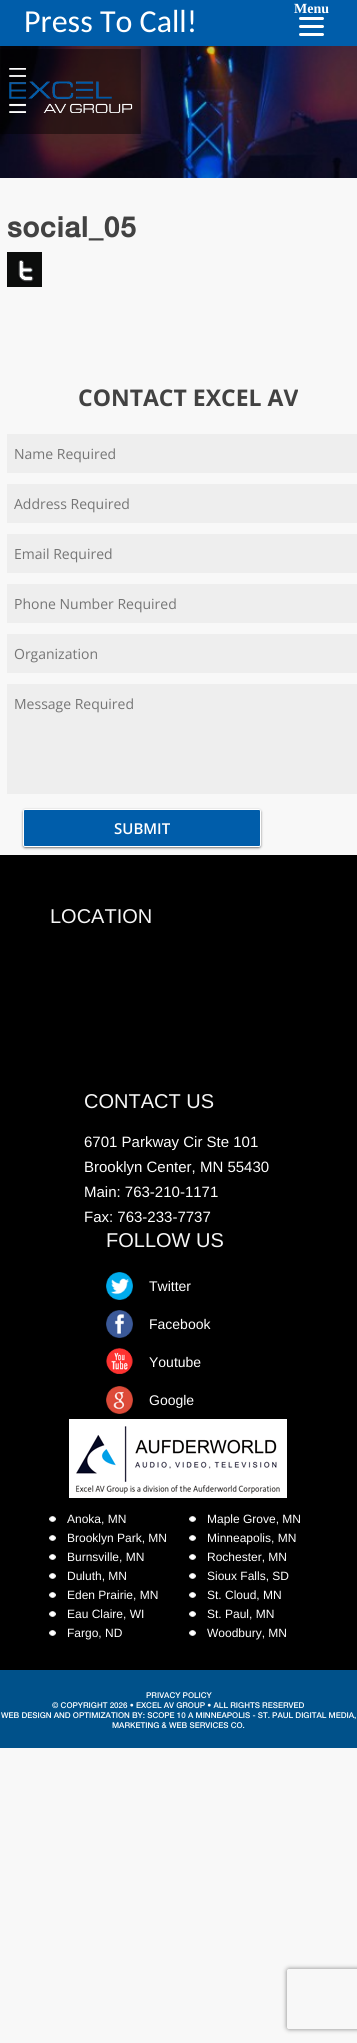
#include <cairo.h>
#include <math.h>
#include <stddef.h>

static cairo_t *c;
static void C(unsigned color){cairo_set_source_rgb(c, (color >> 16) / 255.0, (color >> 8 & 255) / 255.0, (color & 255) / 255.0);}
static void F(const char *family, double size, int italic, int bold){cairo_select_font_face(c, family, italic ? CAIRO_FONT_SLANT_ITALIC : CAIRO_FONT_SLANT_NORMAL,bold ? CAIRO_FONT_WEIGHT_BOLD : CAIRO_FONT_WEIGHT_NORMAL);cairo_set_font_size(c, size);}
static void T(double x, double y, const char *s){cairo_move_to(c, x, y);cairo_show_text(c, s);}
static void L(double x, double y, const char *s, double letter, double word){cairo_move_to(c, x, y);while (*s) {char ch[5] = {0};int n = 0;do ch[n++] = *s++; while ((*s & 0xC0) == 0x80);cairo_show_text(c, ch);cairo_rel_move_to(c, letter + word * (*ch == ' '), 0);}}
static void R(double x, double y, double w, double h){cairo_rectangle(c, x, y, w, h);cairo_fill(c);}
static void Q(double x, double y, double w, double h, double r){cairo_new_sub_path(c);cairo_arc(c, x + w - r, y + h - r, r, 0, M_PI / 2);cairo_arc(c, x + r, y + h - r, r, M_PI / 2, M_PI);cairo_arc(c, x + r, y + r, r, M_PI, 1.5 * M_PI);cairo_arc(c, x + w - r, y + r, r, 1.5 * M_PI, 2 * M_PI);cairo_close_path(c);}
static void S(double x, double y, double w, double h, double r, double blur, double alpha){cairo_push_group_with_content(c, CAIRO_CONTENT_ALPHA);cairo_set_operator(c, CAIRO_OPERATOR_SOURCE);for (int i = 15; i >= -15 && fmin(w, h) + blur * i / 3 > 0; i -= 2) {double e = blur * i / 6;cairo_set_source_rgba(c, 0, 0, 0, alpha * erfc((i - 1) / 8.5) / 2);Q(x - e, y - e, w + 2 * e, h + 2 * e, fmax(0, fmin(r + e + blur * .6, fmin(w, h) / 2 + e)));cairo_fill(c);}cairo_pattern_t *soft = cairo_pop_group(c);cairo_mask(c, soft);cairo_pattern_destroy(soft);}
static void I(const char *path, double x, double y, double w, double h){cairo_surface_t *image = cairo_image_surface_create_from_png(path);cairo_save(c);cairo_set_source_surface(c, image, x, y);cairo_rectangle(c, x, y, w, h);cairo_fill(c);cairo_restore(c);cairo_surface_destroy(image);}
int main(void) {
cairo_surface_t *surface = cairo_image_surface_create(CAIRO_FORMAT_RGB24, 357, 2043);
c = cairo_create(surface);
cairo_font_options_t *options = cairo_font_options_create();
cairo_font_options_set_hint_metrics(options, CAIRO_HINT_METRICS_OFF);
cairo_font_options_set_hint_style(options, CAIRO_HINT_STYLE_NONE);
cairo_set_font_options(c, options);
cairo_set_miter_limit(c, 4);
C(0xf8f8f8);
cairo_paint(c);
C(0x005daa);
R(0,0,357,46);
F("Carlito",32,0,0);
C(0xffffff);
T(24,32,"Press To Call!");
F("Liberation Serif",14,0,1);
T(294,13,"Menu");
Q(299,25,25,3,1.5);
cairo_fill(c);
Q(299,17,25,3,1.5);
cairo_fill(c);
Q(299,33,25,3,1.5);
cairo_fill(c);
I("1.png",0,46,357,132);
I("2.png",0,49,141,85);
F("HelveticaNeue",28,0,1);
C(0x424242);
L(7,237,"social_05",1,0);
I("3.png",7,252,35,35);
F("Open Sans",23,0,1);
T(78,406,"CONTACT EXCEL AV");
C(0xeeeeee);
R(7,434,350,39);
F("Open Sans",14,0,0);
C(0x757575);
T(14,459,"Name Required");
C(0xeeeeee);
R(7,484,350,39);
C(0x757575);
T(14,509,"Address Required");
C(0xeeeeee);
R(7,534,350,39);
C(0x757575);
T(14,559,"Email Required");
C(0xeeeeee);
R(7,584,350,39);
C(0x757575);
T(14,609,"Phone Number Required");
C(0xeeeeee);
R(7,634,350,39);
C(0x757575);
T(14,659,"Organization");
C(0xeeeeee);
R(7,684,350,110);
C(0x757575);
T(14,709,"Message Required");
C(0x000000);
S(24,811,236,36,1,1.5,1);
C(0x005daa);
Q(23.5,809.5,237,37,1.5);
cairo_fill_preserve(c);
C(0xffffff);
cairo_set_line_width(c,1);
cairo_stroke(c);
F("Open Sans SemiBold",15,0,0);
T(114,834,"SUBMIT");
C(0x000000);
R(0,855,357,815);
F("Liberation Sans",20,0,0);
C(0xf6f6f6);
T(50,923,"LOCATION");
T(84,1108,"CONTACT US");
F("Liberation Sans",15,0,0);
C(0xffffff);
T(84,1147,"6701 Parkway Cir Ste 101");
T(84,1172,"Brooklyn Center, MN 55430");
T(84,1197,"Main: 763-210-1171");
T(84,1222,"Fax: 763-233-7737");
F("Liberation Sans",20,0,0);
C(0xf6f6f6);
T(106,1247,"FOLLOW US");
I("4.png",106,1272,27,28);
F("Liberation Sans",14,0,0);
C(0xffffff);
T(149,1291,"Twitter");
I("5.png",106,1310,27,28);
T(149,1329,"Facebook");
I("6.png",106,1348,27,26);
T(149,1367,"Youtube");
I("7.png",106,1386,27,28);
T(149,1405,"Google");
I("8.png",69,1419,218,79);
I("9.png",49,1516,7,6);
F("Liberation Sans",12,0,0);
T(67,1523,"Anoka, MN");
I("9.png",49,1535,7,6);
T(67,1542,"Brooklyn Park, MN");
I("9.png",49,1554,7,6);
T(67,1561,"Burnsville, MN");
I("9.png",49,1573,7,6);
T(67,1580,"Duluth, MN");
I("9.png",49,1592,7,6);
T(67,1599,"Eden Prairie, MN");
I("9.png",49,1611,7,6);
T(67,1618,"Eau Claire, WI");
I("9.png",49,1630,7,6);
T(67,1637,"Fargo, ND");
I("9.png",189,1516,7,6);
T(207,1523,"Maple Grove, MN");
I("9.png",189,1535,7,6);
T(207,1542,"Minneapolis, MN");
I("9.png",189,1554,7,6);
T(207,1561,"Rochester, MN");
I("9.png",189,1573,7,6);
T(207,1580,"Sioux Falls, SD");
I("9.png",189,1592,7,6);
T(207,1599,"St. Cloud, MN");
I("9.png",189,1611,7,6);
T(207,1618,"St. Paul, MN");
I("9.png",189,1630,7,6);
T(207,1637,"Woodbury, MN");
C(0x00518a);
R(0,1670,357,78);
F("HelveticaNeue Medium",8,0,0);
C(0xffffff);
T(146,1698,"PRIVACY POLICY");
T(52,1708,"© COPYRIGHT 2026 • EXCEL AV GROUP • ALL RIGHTS RESERVED");
T(1,1718,"WEB DESIGN AND OPTIMIZATION BY: SCOPE 10 A MINNEAPOLIS - ST. PAUL DIGITAL MEDIA,");
T(112,1728,"MARKETING & WEB SERVICES CO.");
cairo_save(c);
cairo_set_fill_rule(c,CAIRO_FILL_RULE_EVEN_ODD);
cairo_new_path(c);
cairo_move_to(c,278,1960);
cairo_line_to(c,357,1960);
cairo_line_to(c,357,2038);
cairo_line_to(c,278,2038);
cairo_close_path(c);
cairo_move_to(c,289,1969);
cairo_line_to(c,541,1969);
cairo_curve_to(c,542,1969,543,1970,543,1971);
cairo_line_to(c,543,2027);
cairo_curve_to(c,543,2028,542,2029,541,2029);
cairo_line_to(c,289,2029);
cairo_curve_to(c,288,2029,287,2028,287,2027);
cairo_line_to(c,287,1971);
cairo_curve_to(c,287,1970,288,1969,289,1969);
cairo_close_path(c);
cairo_clip(c);
C(0x808080);
S(287,1969,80,60,2,2.5,1);
cairo_restore(c);
cairo_surface_write_to_png(surface, "o.png");
cairo_font_options_destroy(options);
cairo_destroy(c);
cairo_surface_destroy(surface);
return 0;
}
